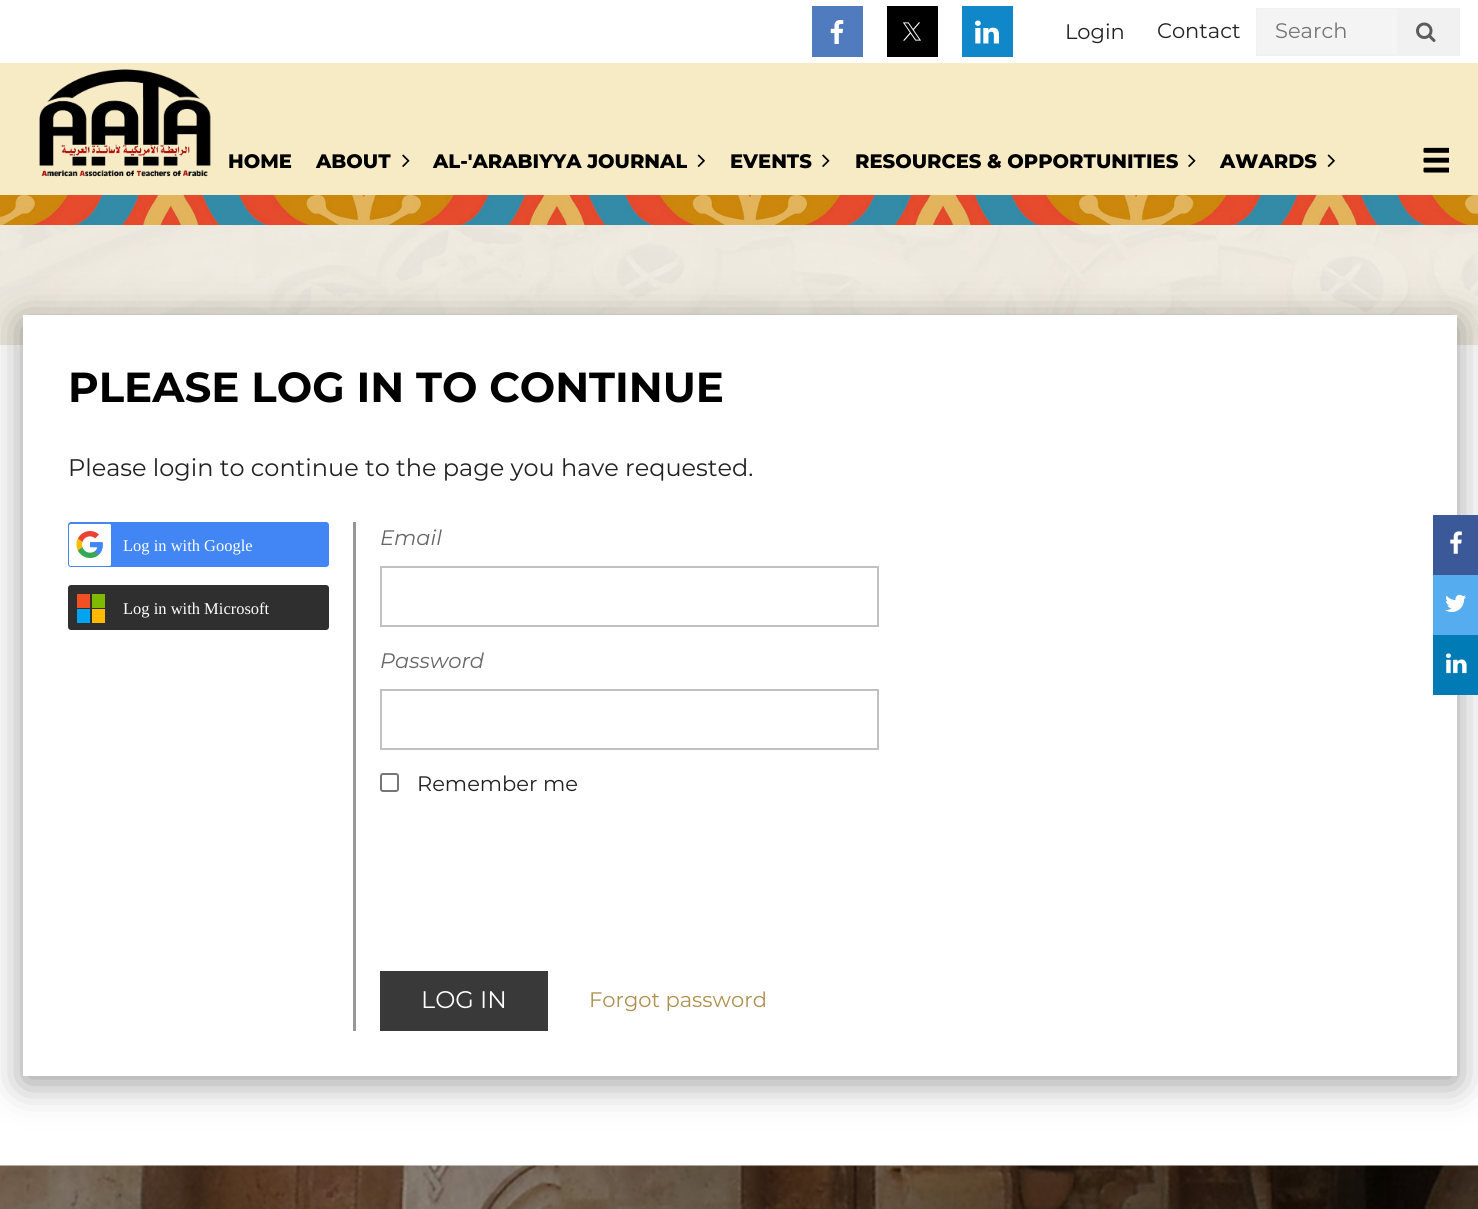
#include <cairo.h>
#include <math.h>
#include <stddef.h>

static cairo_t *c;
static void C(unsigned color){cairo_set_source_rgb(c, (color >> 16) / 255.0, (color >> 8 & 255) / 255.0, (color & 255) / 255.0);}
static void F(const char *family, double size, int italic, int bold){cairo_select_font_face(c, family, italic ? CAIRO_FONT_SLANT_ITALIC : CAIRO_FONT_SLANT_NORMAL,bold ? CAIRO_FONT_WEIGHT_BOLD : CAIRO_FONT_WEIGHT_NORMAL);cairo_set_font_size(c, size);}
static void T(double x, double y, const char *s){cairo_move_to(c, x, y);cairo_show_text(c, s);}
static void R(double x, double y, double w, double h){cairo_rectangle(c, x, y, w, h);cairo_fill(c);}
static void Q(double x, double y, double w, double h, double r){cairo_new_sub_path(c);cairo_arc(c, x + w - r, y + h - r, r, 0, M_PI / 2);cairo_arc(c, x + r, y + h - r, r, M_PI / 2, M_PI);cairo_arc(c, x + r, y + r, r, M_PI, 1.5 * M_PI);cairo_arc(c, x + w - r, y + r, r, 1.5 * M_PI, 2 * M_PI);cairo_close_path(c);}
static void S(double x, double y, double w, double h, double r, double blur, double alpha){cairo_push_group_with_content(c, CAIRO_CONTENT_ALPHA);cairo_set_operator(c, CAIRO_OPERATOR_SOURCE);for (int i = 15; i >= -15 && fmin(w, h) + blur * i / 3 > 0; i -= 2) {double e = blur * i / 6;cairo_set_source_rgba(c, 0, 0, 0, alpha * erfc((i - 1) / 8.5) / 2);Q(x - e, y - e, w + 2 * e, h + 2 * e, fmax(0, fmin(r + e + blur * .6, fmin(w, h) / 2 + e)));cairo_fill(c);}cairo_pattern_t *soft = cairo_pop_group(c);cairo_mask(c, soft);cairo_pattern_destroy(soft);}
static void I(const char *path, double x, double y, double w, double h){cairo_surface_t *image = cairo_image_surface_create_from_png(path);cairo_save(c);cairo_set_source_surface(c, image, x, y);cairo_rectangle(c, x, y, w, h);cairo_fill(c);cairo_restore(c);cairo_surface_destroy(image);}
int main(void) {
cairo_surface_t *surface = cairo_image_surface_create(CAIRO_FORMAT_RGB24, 1478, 1209);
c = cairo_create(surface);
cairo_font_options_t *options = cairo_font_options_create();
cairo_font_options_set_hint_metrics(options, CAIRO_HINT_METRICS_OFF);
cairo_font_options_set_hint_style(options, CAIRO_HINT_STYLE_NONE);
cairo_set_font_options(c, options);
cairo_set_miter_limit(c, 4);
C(0xffffff);
cairo_paint(c);
C(0x507bbe);
R(812,6,51,51);
I("1.png",830,20,14,24);
C(0x000000);
R(887,6,51,51);
I("2.png",903,22,18,19);
C(0x1087c9);
R(962,6,51,51);
I("3.png",975,20,24,24);
I("12.png",0,225,1478,120);
C(0x000000);
S(23,323,1434,760,0,19,.4);
C(0xffffff);
R(23,315,1434,761);
C(0x3b5998);
R(1433,515,45,60);
I("4.png",1450,531,12,23);
C(0x55acee);
R(1433,575,45,60);
I("5.png",1445,594,21,18);
C(0x007bb5);
R(1433,635,45,60);
I("6.png",1446,653,21,21);
F("Montserrat",21,0,0);
C(0x222222);
T(1065,39,"Login");
T(1157,38,"Contact");
C(0xf1f1f1);
R(1256,8,204,48);
C(0xf4f4f4);
R(1257,9,140,45);
C(0x757575);
T(1275,38,"Search");
I("7.png",1416,22,20,20);
C(0xf6ebc5);
R(0,63,1478,132);
I("8.png",39,69,172,108);
F("Montserrat ExtraBold",19.5,0,0);
C(0x000000);
T(228,168,"HOME");
T(316,168,"ABOUT");
I("9.png",402,154,8,13);
T(433,168,"AL-'ARABIYYA JOURNAL");
I("10.png",697,154,8,13);
T(730,168,"EVENTS");
I("9.png",822,154,8,13);
T(855,168,"RESOURCES & OPPORTUNITIES");
I("9.png",1188,154,8,13);
T(1220,168,"AWARDS");
I("10.png",1327,154,8,13);
I("11.png",1423,147,26,26);
I("13.png",0,195,1478,30);
F("Montserrat",42,0,1);
T(68,402,"PLEASE LOG IN TO CONTINUE");
F("Montserrat",24,0,0);
C(0x222222);
T(68,476,"Please login to continue to the page you have requested.");
C(0x4285f4);
Q(69,523,259,43,2);
cairo_fill_preserve(c);
cairo_stroke(c);
I("14.png",69,524,42,42);
F("Liberation Serif",16.5,0,0);
C(0xffffff);
T(123,551,"Log in with Google");
C(0x2f2f2f);
Q(69,586,259,43,2);
cairo_fill_preserve(c);
cairo_stroke(c);
C(0xf25022);
R(77,594,13,14);
C(0x00a4ef);
R(77,609,13,14);
C(0x7fba00);
R(92,594,13,14);
C(0xffb900);
R(92,609,13,14);
C(0xffffff);
T(123,614,"Log in with Microsoft");
C(0x979797);
R(353,522,3,509);
F("Montserrat",21,1,0);
C(0x676767);
T(380,545,"Email");
cairo_rectangle(c,381,567,497,59);
C(0xc1c1c1);
cairo_stroke(c);
C(0x676767);
T(380,668,"Password");
cairo_rectangle(c,381,690,497,59);
C(0xc1c1c1);
cairo_stroke(c);
Q(381,774,17,17,2);
C(0x767676);
cairo_stroke(c);
F("Montserrat",21,0,0);
C(0x222222);
T(417,791,"Remember me");
C(0x393939);
R(380,971,168,60);
F("Montserrat",24,0,0);
C(0xffffff);
T(421,1008,"LOG IN");
F("Montserrat",21,0,0);
C(0xb09050);
T(589,1007,"Forgot password");
I("15.png",0,1165,1478,44);
cairo_surface_write_to_png(surface, "o.png");
cairo_font_options_destroy(options);
cairo_destroy(c);
cairo_surface_destroy(surface);
return 0;
}
